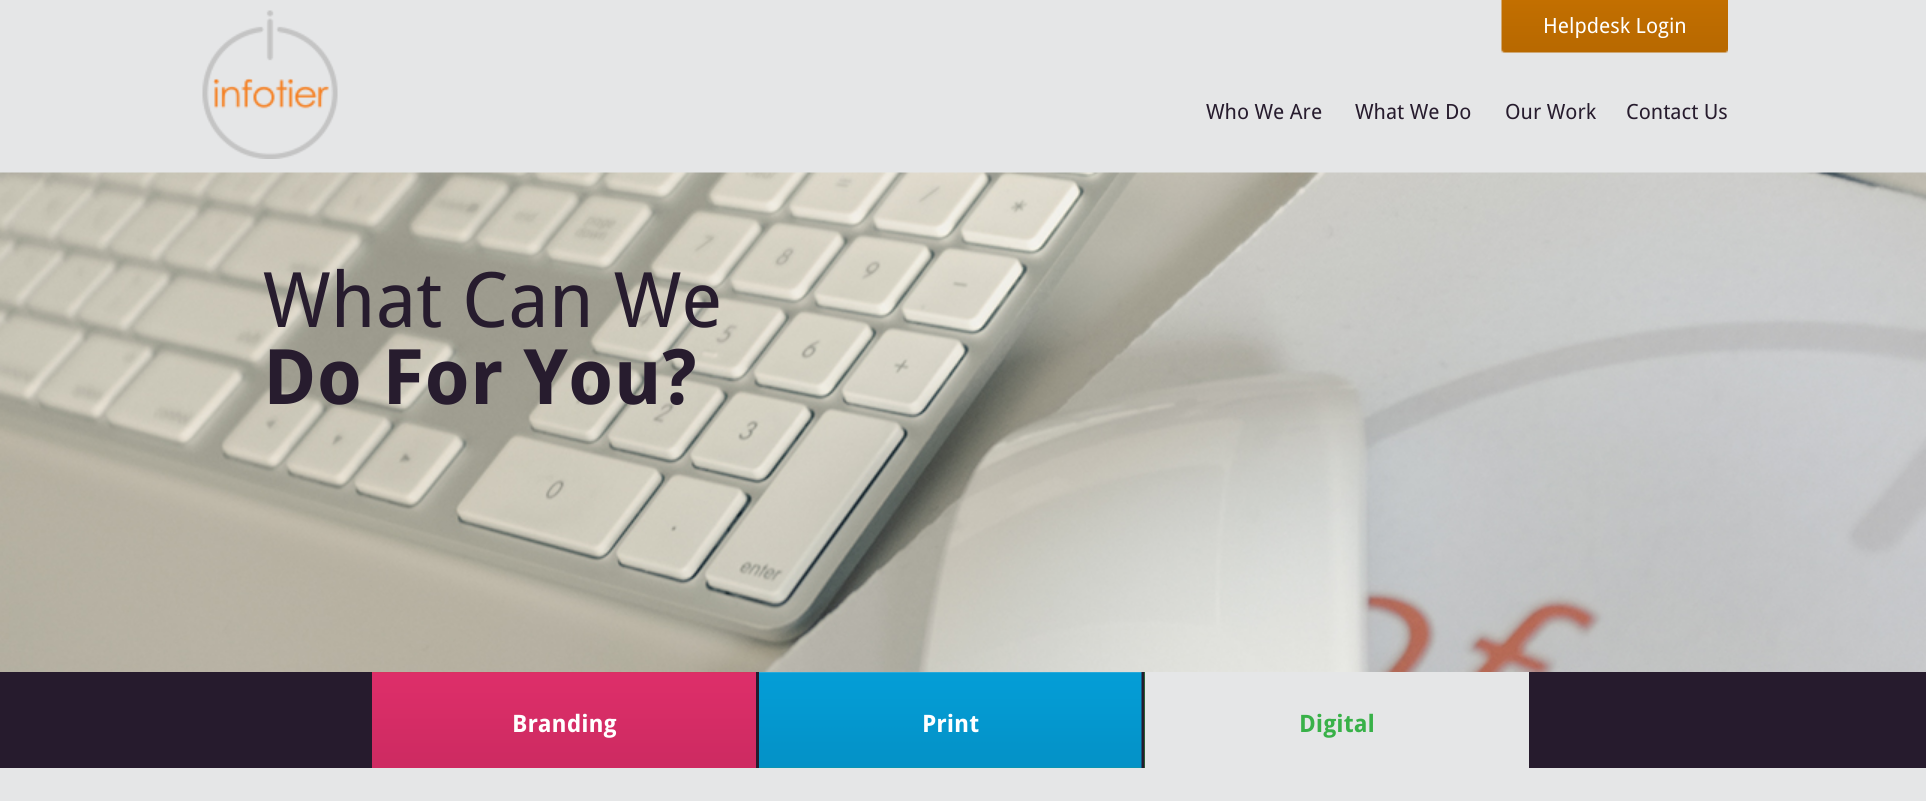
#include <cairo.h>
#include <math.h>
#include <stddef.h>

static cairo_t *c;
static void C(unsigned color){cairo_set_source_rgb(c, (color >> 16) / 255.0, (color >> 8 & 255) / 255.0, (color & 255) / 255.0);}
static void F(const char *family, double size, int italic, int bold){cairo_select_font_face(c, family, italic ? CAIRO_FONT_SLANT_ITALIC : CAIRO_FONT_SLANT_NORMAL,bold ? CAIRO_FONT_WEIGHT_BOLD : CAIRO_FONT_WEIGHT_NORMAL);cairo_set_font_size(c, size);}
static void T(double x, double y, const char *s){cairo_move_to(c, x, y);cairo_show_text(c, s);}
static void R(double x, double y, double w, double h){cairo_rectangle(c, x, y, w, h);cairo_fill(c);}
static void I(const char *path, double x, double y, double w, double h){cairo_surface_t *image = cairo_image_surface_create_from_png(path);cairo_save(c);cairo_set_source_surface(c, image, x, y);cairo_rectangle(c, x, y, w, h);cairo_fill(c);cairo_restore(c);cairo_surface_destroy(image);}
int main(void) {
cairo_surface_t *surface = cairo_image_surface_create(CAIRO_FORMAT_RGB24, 1926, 801);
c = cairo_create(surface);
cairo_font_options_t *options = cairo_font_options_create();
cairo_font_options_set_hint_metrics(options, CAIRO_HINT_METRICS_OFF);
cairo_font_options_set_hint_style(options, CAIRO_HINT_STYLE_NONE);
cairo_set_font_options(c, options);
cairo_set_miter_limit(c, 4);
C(0xe5e6e7);
cairo_paint(c);
I("1.png",202,10,136,149);
I("2.png",1501,0,227,53);
F("Droid Sans",21,0,0);
C(0xffffff);
T(1543,33,"Helpdesk Login");
C(0x271c2e);
T(1206,119,"Who We Are");
T(1355,119,"What We Do");
T(1505,119,"Our Work");
T(1626,119,"Contact Us");
I("3.png",0,172,1926,500);
F("Droid Sans",76.5,0,0);
T(263,327,"What Can We");
F("Droid Sans",76.5,0,1);
T(263,404,"Do For You?");
C(0x261b2d);
R(0,672,1926,96);
I("4.png",372,672,384,96);
F("Droid Sans",24,0,1);
C(0xffffff);
T(512,732,"Branding");
I("5.png",759,672,383,96);
T(922,732,"Print");
I("6.png",1144,672,1,96);
C(0xe5e6e7);
R(1145,672,384,96);
C(0x38b148);
T(1299,732,"Digital");
cairo_surface_write_to_png(surface, "o.png");
cairo_font_options_destroy(options);
cairo_destroy(c);
cairo_surface_destroy(surface);
return 0;
}
